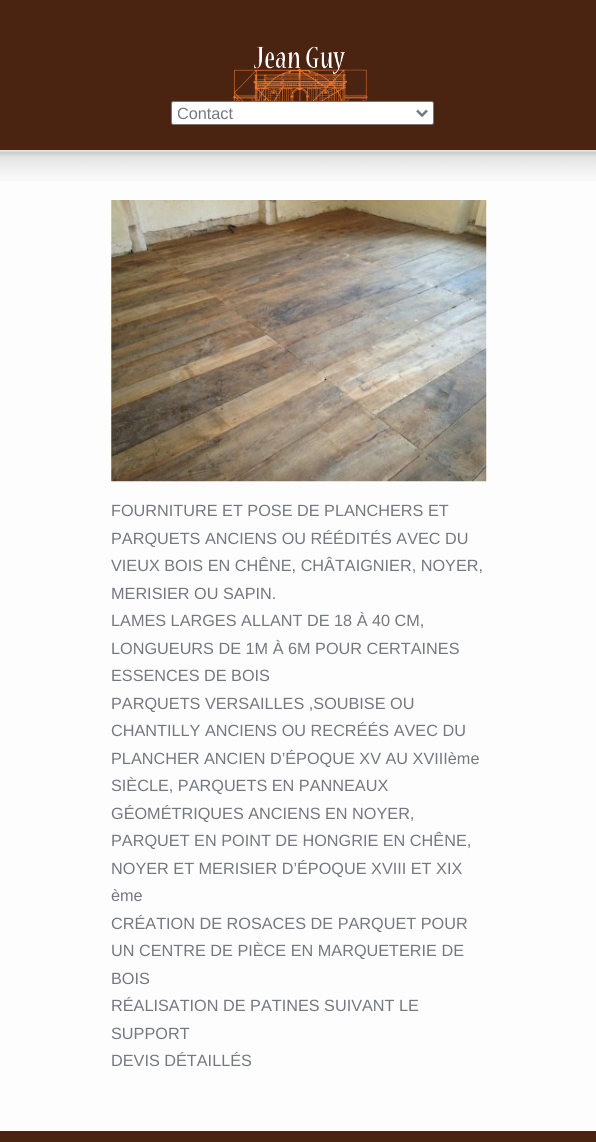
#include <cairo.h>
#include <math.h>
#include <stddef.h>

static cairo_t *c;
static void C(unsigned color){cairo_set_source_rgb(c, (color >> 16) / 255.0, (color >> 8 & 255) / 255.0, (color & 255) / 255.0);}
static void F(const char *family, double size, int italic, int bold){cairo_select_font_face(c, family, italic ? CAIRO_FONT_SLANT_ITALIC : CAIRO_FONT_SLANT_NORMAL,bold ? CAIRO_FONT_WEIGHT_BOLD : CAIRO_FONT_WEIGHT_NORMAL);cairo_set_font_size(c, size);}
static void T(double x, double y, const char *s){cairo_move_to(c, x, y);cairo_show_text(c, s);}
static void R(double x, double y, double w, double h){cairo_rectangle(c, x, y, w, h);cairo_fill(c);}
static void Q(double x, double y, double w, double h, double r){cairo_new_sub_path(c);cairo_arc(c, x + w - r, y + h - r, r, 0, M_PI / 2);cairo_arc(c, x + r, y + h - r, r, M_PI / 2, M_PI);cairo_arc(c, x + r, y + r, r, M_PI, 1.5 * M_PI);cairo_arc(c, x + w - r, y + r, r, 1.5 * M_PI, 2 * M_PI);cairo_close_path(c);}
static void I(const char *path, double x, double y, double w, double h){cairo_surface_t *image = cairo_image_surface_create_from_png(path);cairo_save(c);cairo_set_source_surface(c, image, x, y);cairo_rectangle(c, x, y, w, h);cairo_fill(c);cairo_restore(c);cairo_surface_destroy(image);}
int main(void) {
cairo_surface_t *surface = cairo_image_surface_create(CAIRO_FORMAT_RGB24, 596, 1142);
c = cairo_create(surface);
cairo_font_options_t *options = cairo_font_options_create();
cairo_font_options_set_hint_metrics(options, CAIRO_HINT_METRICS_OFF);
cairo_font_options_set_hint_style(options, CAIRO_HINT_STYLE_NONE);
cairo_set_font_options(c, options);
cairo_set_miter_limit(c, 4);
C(0x4a2411);
cairo_paint(c);
I("1.png",232,46,136,55);
C(0xffffff);
Q(171.5,101.5,262,23,2);
cairo_fill_preserve(c);
C(0x767676);
cairo_set_line_width(c,1);
cairo_stroke(c);
cairo_new_path(c);
cairo_move_to(c,417,110.5);
cairo_line_to(c,422,115.5);
cairo_line_to(c,427,110.5);
C(0x747880);
cairo_set_line_width(c,2.5);
cairo_stroke(c);
cairo_save(c);
cairo_rectangle(c,178,103,235,21);
cairo_clip(c);
F("Liberation Sans",16.25,0,0);
T(177,119,"Contact");
cairo_restore(c);
C(0xfdfdfd);
R(0,151,596,980);
I("2.png",0,150,596,31);
I("3.png",111,200,376,282);
F("Liberation Sans",16.25,0,0);
C(0x747880);
T(111,516,"FOURNITURE ET POSE DE PLANCHERS ET");
T(111,544,"PARQUETS ANCIENS OU RÉÉDITÉS AVEC DU");
T(111,571,"VIEUX BOIS EN CHÊNE, CHÂTAIGNIER, NOYER,");
T(111,599,"MERISIER OU SAPIN.");
T(111,626,"LAMES LARGES ALLANT DE 18 À 40 CM,");
T(111,654,"LONGUEURS DE 1M À 6M POUR CERTAINES");
T(111,681,"ESSENCES DE BOIS");
T(111,709,"PARQUETS VERSAILLES ,SOUBISE OU");
T(111,736,"CHANTILLY ANCIENS OU RECRÉÉS AVEC DU");
T(111,764,"PLANCHER ANCIEN D’ÉPOQUE XV AU XVIIIème");
T(111,791,"SIÈCLE, PARQUETS EN PANNEAUX");
T(111,819,"GÉOMÉTRIQUES ANCIENS EN NOYER,");
T(111,846,"PARQUET EN POINT DE HONGRIE EN CHÊNE,");
T(111,874,"NOYER ET MERISIER D’ÉPOQUE XVIII ET XIX");
T(111,901,"ème");
T(111,929,"CRÉATION DE ROSACES DE PARQUET POUR");
T(111,956,"UN CENTRE DE PIÈCE EN MARQUETERIE DE");
T(111,984,"BOIS");
T(111,1011,"RÉALISATION DE PATINES SUIVANT LE");
T(111,1039,"SUPPORT");
T(111,1066,"DEVIS DÉTAILLÉS");
cairo_surface_write_to_png(surface, "o.png");
cairo_font_options_destroy(options);
cairo_destroy(c);
cairo_surface_destroy(surface);
return 0;
}
